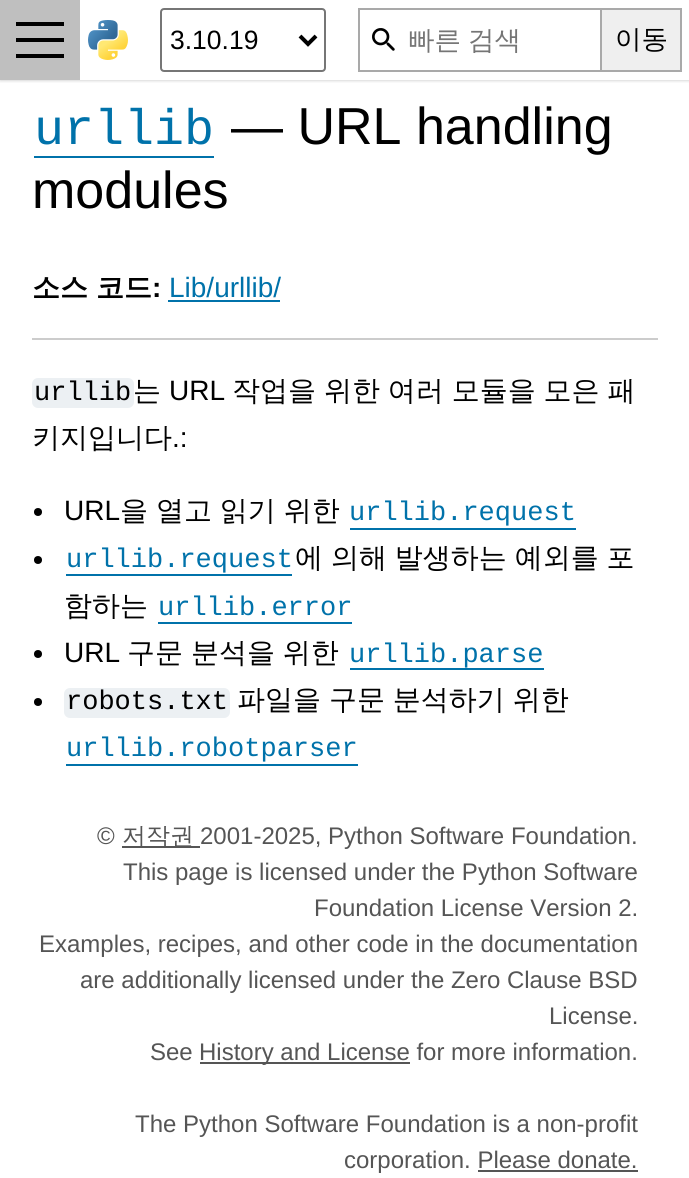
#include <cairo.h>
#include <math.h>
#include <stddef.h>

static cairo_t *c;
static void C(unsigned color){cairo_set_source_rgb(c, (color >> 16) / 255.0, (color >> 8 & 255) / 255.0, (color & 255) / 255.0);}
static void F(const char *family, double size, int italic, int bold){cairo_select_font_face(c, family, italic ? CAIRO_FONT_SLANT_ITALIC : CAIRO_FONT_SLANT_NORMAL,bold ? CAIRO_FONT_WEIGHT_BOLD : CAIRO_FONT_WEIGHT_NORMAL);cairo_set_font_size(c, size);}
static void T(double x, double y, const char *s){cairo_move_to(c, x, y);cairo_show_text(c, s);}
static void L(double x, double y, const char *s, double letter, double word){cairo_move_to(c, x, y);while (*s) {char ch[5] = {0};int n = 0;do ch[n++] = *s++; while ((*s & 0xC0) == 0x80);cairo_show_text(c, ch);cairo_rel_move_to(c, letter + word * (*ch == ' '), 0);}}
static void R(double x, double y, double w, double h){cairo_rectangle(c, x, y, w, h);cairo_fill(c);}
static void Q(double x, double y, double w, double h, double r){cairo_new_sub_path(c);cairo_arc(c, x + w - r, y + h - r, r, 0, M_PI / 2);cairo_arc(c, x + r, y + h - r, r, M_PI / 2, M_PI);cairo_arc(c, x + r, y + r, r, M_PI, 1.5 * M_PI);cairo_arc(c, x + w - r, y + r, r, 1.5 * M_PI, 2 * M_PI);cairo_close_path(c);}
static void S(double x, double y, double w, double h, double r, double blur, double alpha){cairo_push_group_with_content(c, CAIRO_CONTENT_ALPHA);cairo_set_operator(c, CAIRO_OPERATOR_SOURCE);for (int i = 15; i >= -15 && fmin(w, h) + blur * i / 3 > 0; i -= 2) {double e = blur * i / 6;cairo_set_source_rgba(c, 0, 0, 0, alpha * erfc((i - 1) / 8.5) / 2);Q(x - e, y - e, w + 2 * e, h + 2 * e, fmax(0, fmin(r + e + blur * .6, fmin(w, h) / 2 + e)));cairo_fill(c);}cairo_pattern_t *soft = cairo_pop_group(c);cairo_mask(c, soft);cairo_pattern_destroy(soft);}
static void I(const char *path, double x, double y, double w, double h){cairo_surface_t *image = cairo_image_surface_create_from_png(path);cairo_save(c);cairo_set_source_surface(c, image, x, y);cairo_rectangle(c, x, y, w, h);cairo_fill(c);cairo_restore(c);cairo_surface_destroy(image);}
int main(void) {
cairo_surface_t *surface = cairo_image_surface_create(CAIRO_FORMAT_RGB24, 689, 1178);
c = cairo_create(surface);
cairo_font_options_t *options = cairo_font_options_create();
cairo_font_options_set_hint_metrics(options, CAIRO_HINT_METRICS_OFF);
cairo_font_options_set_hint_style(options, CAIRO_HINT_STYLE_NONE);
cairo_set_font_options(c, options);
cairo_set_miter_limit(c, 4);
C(0xffffff);
cairo_paint(c);
cairo_save(c);
cairo_rectangle(c,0,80,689,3);
cairo_clip(c);
C(0x000000);
S(0,0,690,80,0,2,.25);
cairo_restore(c);
C(0xbfbfbf);
R(0,0,80,80);
C(0x000000);
R(16,38,48,4);
R(16,22,48,4);
R(16,54,48,4);
I("1.png",88,20,40,40);
Q(161,9,164,62,3);
C(0x767676);
cairo_stroke(c);
cairo_new_path(c);
cairo_move_to(c,300,36);
cairo_line_to(c,308,44);
cairo_line_to(c,316,36);
C(0x000000);
cairo_set_line_width(c,4);
cairo_stroke(c);
F("Liberation Sans",26.5,0,0);
T(170,49,"3.10.19");
cairo_rectangle(c,359,9,322,62);
C(0xa9a9a9);
cairo_set_line_width(c,2);
cairo_stroke(c);
I("2.png",372,28,23,23);
F("WenQuanYi Zen Hei Medium",26.5,0,0);
C(0x757575);
L(408,49,"빠른 검색",0,-1);
C(0xefefef);
R(602,10,78,60);
C(0xa9a9a9);
R(600,10,2,60);
C(0x000000);
T(615,48,"이동");
F("Liberation Mono",50,0,0);
C(0x0072aa);
T(34,144,"urllib");
R(34,156,180,2);
F("Liberation Sans",52,0,0);
C(0x000000);
T(231,144,"— URL handling");
T(32,208,"modules");
F("WenQuanYi Zen Hei",28,0,1);
L(32,297,"소스 코드",0,-.5);
F("Liberation Sans",28,0,1);
T(152,297,":");
F("Liberation Sans",28,0,0);
C(0x0072aa);
T(169,297,"Lib/urllib/");
R(168,300,112,2);
C(0xcccccc);
R(32,338,626,2);
C(0xecf0f3);
Q(32,378,102,30,6);
cairo_fill(c);
F("Liberation Mono",27,0,0);
C(0x000000);
T(34,400,"urllib");
F("WenQuanYi Zen Hei Medium",28,0,0);
T(133,400,"는");
F("Liberation Sans",28,0,0);
T(169,400,"URL");
F("WenQuanYi Zen Hei Medium",28,0,0);
L(232,400,"작업을 위한 여러 모듈을 모은 패",0,-.5);
T(32,447,"키지입니다");
F("Liberation Sans",28,0,0);
T(172,447,".:");
cairo_new_path(c);
cairo_arc(c,38,512,4,0,2 * M_PI);
cairo_fill(c);
T(64,520,"URL");
F("WenQuanYi Zen Hei Medium",28,0,0);
L(120,520,"을 열고 읽기 위한",0,-.5);
F("Liberation Mono",27,0,0);
C(0x0072aa);
T(349,520,"urllib.request");
R(350,528,226,2);
C(0x000000);
cairo_new_path(c);
cairo_arc(c,38,560,4,0,2 * M_PI);
cairo_fill(c);
C(0x0072aa);
T(66,567,"urllib.request");
R(66,574,226,2);
F("WenQuanYi Zen Hei Medium",28,0,0);
C(0x000000);
L(295,567,"에 의해 발생하는 예외를 포",0,-.5);
T(64,615,"함하는");
F("Liberation Mono",27,0,0);
C(0x0072aa);
T(158,615,"urllib.error");
R(158,622,194,2);
C(0x000000);
cairo_new_path(c);
cairo_arc(c,38,654,4,0,2 * M_PI);
cairo_fill(c);
F("Liberation Sans",28,0,0);
T(64,662,"URL");
F("WenQuanYi Zen Hei Medium",28,0,0);
L(127,662,"구문 분석을 위한",0,-.5);
F("Liberation Mono",27,0,0);
C(0x0072aa);
T(349,662,"urllib.parse");
R(350,668,194,2);
C(0x000000);
cairo_new_path(c);
cairo_arc(c,38,702,4,0,2 * M_PI);
cairo_fill(c);
C(0xecf0f3);
Q(64,688,166,30,6);
cairo_fill(c);
C(0x000000);
T(66,709,"robots.txt");
F("WenQuanYi Zen Hei Medium",28,0,0);
L(237,709,"파일을 구문 분석하기 위한",0,-.5);
F("Liberation Mono",27,0,0);
C(0x0072aa);
T(66,756,"urllib.robotparser");
R(66,764,292,2);
F("Liberation Sans",24,0,0);
C(0x555555);
T(97,844,"©");
R(122,846,78,2);
F("WenQuanYi Zen Hei Medium",24,0,0);
T(122,844,"저작권");
F("Liberation Sans",24,0,0);
T(200,844,"2001-2025, Python Software Foundation.");
T(123,880,"This page is licensed under the Python Software");
T(314,916,"Foundation License Version 2.");
T(39,952,"Examples, recipes, and other code in the documentation");
T(80,988,"are additionally licensed under the Zero Clause BSD");
T(549,1024,"License.");
T(150,1060,"See");
R(200,1062,210,2);
T(199,1060,"History and License for more information.");
T(135,1132,"The Python Software Foundation is a non-profit");
T(344,1168,"corporation. Please donate.");
R(478,1170,160,2);
cairo_surface_write_to_png(surface, "o.png");
cairo_font_options_destroy(options);
cairo_destroy(c);
cairo_surface_destroy(surface);
return 0;
}
